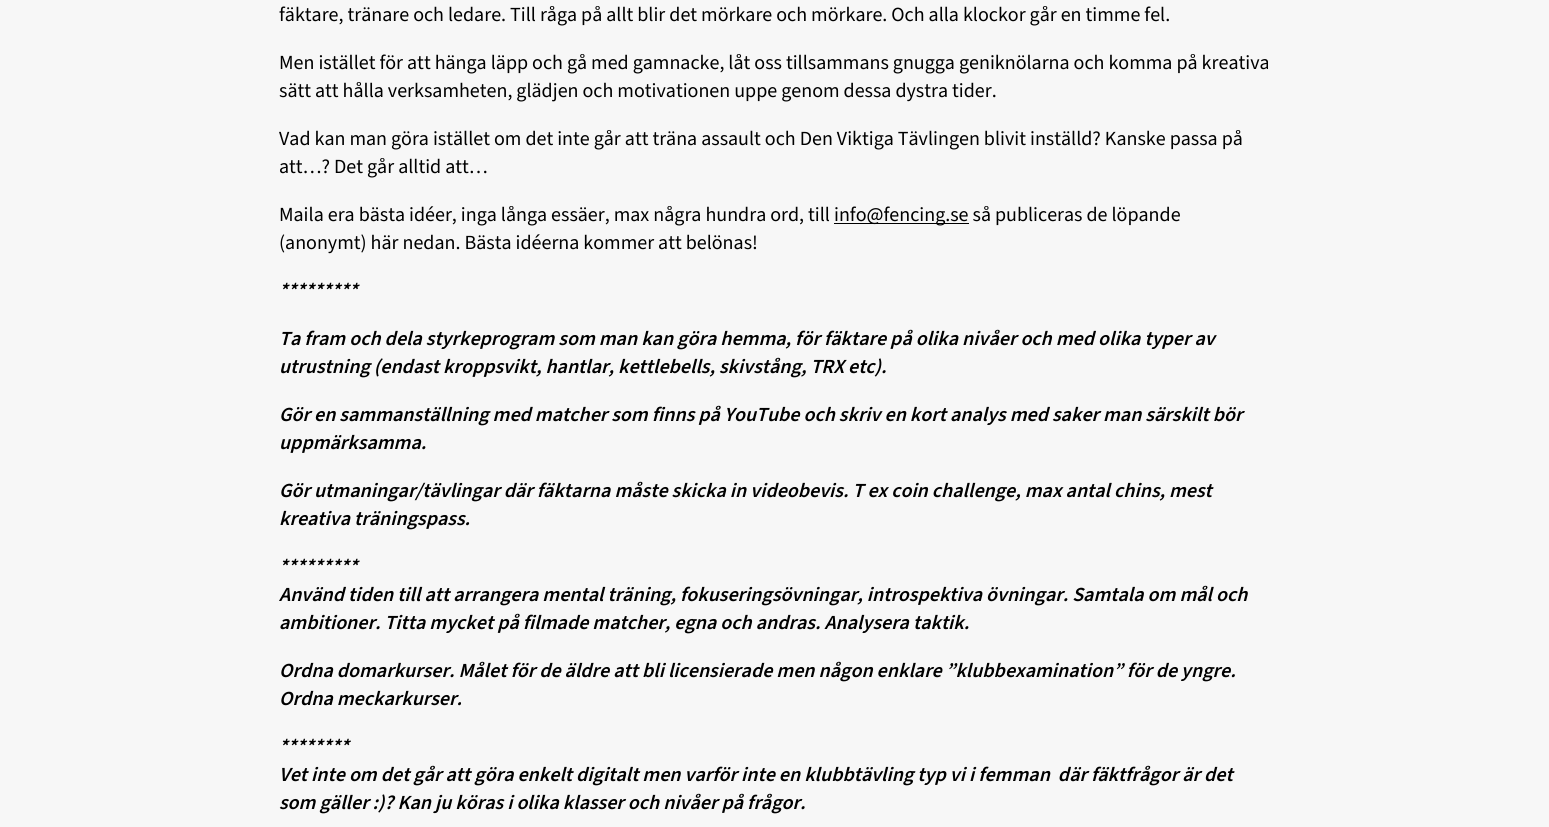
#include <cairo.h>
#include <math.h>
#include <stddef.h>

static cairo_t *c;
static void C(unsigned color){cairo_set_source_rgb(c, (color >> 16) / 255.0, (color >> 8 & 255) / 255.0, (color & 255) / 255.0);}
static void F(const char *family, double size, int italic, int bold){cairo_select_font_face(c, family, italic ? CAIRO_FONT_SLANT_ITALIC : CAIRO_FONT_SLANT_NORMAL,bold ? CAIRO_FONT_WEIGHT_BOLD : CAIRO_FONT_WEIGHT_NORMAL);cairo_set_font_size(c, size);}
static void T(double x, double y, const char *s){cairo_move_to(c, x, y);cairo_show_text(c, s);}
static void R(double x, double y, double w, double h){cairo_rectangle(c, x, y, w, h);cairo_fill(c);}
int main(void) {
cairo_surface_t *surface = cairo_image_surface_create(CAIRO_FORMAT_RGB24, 1549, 827);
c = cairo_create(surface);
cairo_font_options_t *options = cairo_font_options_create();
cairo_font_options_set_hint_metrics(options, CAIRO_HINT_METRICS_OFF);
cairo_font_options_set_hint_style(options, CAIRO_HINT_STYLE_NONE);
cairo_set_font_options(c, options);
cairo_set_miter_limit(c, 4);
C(0xf7f7f7);
cairo_paint(c);
F("Source Sans 3",20,0,0);
C(0x000000);
T(279,21,"fäktare, tränare och ledare. Till råga på allt blir det mörkare och mörkare. Och alla klockor går en timme fel.");
T(279,69,"Men istället för att hänga läpp och gå med gamnacke, låt oss tillsammans gnugga geniknölarna och komma på kreativa");
T(279,97,"sätt att hålla verksamheten, glädjen och motivationen uppe genom dessa dystra tider.");
T(279,145,"Vad kan man göra istället om det inte går att träna assault och Den Viktiga Tävlingen blivit inställd? Kanske passa på");
T(279,173,"att…? Det går alltid att…");
T(279,221,"Maila era bästa idéer, inga långa essäer, max några hundra ord, till");
R(834,223,135,1);
T(834,221,"info@fencing.se så publiceras de löpande");
T(279,249,"(anonymt) här nedan. Bästa idéerna kommer att belönas!");
F("Source Sans 3 SemiBold",20,1,0);
T(279,297,"*********");
T(279,345,"Ta fram och dela styrkeprogram som man kan göra hemma, för fäktare på olika nivåer och med olika typer av");
T(279,373,"utrustning (endast kroppsvikt, hantlar, kettlebells, skivstång, TRX etc).");
T(279,421,"Gör en sammanställning med matcher som finns på YouTube och skriv en kort analys med saker man särskilt bör");
T(279,449,"uppmärksamma.");
T(279,497,"Gör utmaningar/tävlingar där fäktarna måste skicka in videobevis. T ex coin challenge, max antal chins, mest");
T(279,525,"kreativa träningspass.");
T(279,573,"*********");
T(279,601,"Använd tiden till att arrangera mental träning, fokuseringsövningar, introspektiva övningar. Samtala om mål och");
T(279,629,"ambitioner. Titta mycket på filmade matcher, egna och andras. Analysera taktik.");
T(279,677,"Ordna domarkurser. Målet för de äldre att bli licensierade men någon enklare ”klubbexamination” för de yngre.");
T(279,705,"Ordna meckarkurser.");
T(279,753,"********");
T(279,781,"Vet inte om det går att göra enkelt digitalt men varför inte en klubbtävling typ vi i femman  där fäktfrågor är det");
T(279,809,"som gäller :)? Kan ju köras i olika klasser och nivåer på frågor.");
cairo_surface_write_to_png(surface, "o.png");
cairo_font_options_destroy(options);
cairo_destroy(c);
cairo_surface_destroy(surface);
return 0;
}
